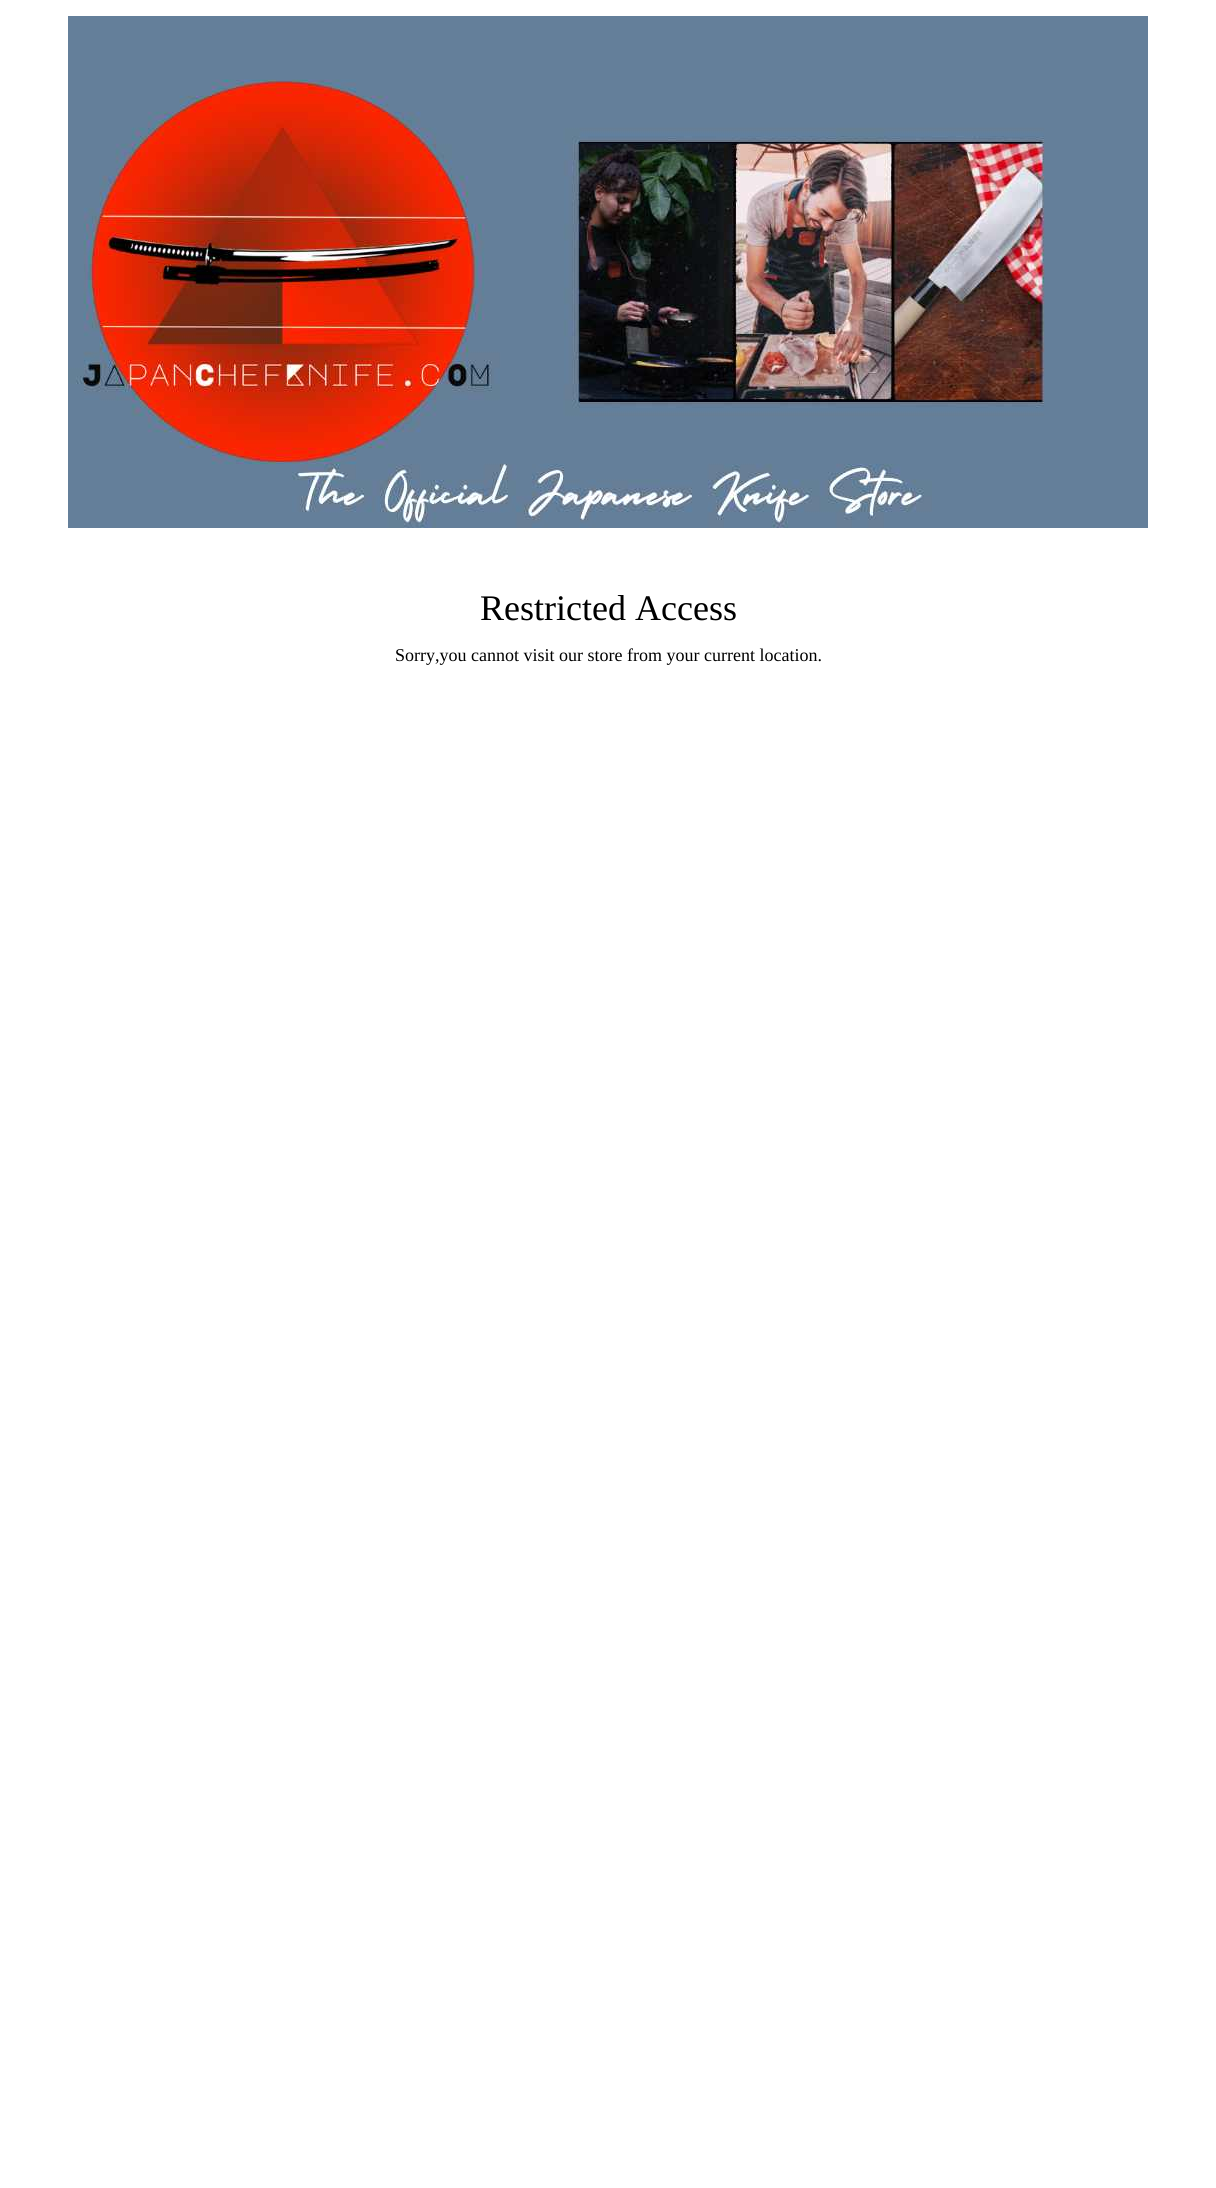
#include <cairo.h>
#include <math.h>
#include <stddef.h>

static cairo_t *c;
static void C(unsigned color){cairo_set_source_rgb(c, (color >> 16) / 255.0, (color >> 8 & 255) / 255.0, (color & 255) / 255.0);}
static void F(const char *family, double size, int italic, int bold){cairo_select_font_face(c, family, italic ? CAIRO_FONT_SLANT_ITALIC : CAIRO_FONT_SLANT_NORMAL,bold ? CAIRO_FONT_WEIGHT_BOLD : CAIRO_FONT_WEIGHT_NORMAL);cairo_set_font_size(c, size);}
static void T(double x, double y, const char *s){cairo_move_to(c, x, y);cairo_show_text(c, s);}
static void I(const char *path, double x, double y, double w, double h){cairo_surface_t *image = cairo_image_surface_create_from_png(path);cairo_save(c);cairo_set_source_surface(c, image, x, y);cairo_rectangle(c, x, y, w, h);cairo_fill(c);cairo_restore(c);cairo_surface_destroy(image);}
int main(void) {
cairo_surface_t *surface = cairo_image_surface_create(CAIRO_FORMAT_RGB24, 1216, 2188);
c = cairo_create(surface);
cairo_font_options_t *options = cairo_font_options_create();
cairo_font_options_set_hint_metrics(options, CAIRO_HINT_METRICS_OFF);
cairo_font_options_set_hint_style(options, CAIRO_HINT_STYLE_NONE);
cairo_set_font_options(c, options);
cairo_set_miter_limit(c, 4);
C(0xffffff);
cairo_paint(c);
I("1.png",68,16,1080,512);
F("Liberation Serif",36,0,0);
C(0x000000);
T(480,620,"Restricted Access");
F("Liberation Serif",18,0,0);
T(395,661,"Sorry,you cannot visit our store from your current location.");
cairo_surface_write_to_png(surface, "o.png");
cairo_font_options_destroy(options);
cairo_destroy(c);
cairo_surface_destroy(surface);
return 0;
}
